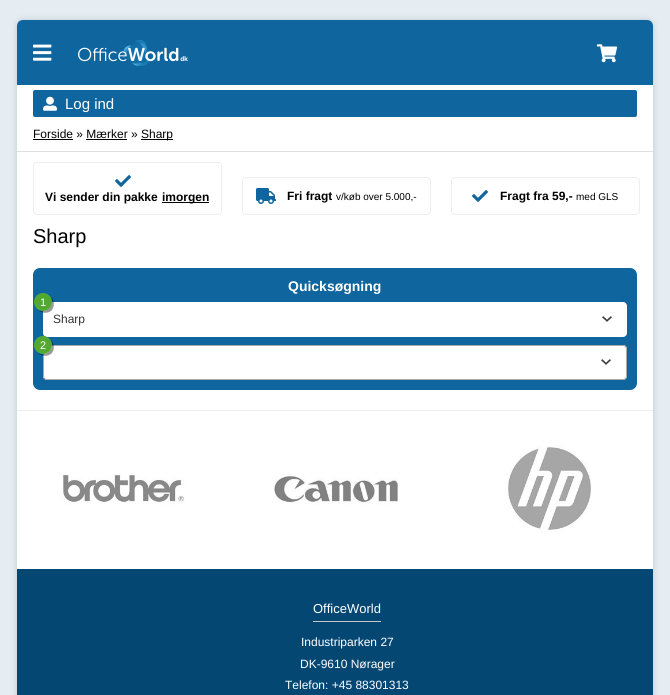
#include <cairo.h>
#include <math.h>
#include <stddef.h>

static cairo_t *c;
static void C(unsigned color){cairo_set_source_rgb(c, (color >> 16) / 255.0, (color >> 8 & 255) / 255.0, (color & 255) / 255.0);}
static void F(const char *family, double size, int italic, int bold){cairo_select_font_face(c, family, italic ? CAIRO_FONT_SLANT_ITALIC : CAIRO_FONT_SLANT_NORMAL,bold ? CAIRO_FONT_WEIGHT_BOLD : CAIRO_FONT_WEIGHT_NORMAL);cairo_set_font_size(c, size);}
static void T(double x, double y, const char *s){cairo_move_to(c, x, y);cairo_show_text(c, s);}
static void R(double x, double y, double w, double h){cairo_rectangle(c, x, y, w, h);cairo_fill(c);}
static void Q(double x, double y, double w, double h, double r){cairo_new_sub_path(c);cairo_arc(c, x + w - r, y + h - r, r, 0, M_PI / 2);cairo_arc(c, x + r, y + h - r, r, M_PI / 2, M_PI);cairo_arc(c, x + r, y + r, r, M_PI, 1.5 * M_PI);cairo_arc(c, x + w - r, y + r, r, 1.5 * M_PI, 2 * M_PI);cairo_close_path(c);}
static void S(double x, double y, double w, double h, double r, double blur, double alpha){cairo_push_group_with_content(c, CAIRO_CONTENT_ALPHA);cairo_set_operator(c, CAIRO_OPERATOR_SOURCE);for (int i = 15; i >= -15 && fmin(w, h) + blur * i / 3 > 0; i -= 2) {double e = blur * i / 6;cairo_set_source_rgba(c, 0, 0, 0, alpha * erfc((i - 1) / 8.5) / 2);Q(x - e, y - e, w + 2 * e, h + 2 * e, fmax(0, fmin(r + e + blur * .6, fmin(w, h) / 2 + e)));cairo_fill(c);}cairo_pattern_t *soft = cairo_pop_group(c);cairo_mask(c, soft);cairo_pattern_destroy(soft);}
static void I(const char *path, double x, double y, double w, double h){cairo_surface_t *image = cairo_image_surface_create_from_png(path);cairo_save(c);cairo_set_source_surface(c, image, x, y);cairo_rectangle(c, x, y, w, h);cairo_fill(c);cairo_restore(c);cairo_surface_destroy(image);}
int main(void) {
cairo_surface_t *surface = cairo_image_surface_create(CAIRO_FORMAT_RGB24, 670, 695);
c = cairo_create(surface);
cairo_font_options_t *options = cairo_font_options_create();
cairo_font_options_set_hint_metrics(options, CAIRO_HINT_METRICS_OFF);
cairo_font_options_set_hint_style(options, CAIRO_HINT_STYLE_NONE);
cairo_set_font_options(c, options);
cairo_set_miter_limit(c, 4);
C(0xe5ecf2);
cairo_paint(c);
C(0x103045);
S(17,20,636,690,6,3,.2);
C(0xffffff);
Q(17,20,636,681,6);
cairo_fill(c);
C(0x0f659e);
cairo_new_path(c);
cairo_move_to(c,23,20);
cairo_line_to(c,647,20);
cairo_curve_to(c,650.5,20,653,22.5,653,26);
cairo_line_to(c,653,85);
cairo_line_to(c,17,85);
cairo_line_to(c,17,26);
cairo_curve_to(c,17,22.5,19.5,20,23,20);
cairo_close_path(c);
cairo_fill(c);
I("1.png",33,44,19,17);
I("2.png",78,39,110,27);
I("3.png",596,44,22,19);
Q(33,90,604,27,2);
cairo_fill(c);
I("4.png",43,96,14,15);
F("Liberation Sans",15,0,0);
C(0xffffff);
T(65,109,"Log ind");
C(0xdedede);
R(17,151,636,1);
F("Liberation Sans",12,0,0);
C(0x000000);
T(33,138,"Forside » Mærker »");
R(33,139,40,1);
R(86,139,41,1);
R(141,139,32,1);
T(141,138,"Sharp");
Q(33.5,162.5,188,52,3.5);
C(0xeeeeee);
cairo_set_line_width(c,1);
cairo_stroke(c);
I("5.png",115,175,16,12);
F("Liberation Sans",12,0,1);
C(0x000000);
T(45,201,"Vi sender din pakke");
R(162,202,47,1);
T(162,201,"imorgen");
Q(242.5,177.5,188,37,3.5);
C(0xeeeeee);
cairo_stroke(c);
I("6.png",256,188,20,16);
C(0x000000);
T(287,200,"Fri fragt");
F("Liberation Sans",10,0,0);
T(336,200,"v/køb over 5.000,-");
Q(451.5,177.5,188,37,3.5);
C(0xeeeeee);
cairo_stroke(c);
I("5.png",472,190,16,12);
F("Liberation Sans",12,0,1);
C(0x000000);
T(500,200,"Fragt fra 59,-");
F("Liberation Sans",10,0,0);
T(576,200,"med GLS");
F("Liberation Sans",20,0,0);
T(33,243,"Sharp");
C(0x0f659e);
Q(33,268,604,122,7);
cairo_fill(c);
F("Liberation Sans",14,0,1);
C(0xffffff);
T(288,291,"Quicksøgning");
Q(43,302,584,35,4);
cairo_fill(c);
cairo_set_source_rgba(c,0,0,0,0.4);
cairo_new_path(c);
cairo_move_to(c,37.5,309.5);
cairo_curve_to(c,41,313.5,47.5,314,51.5,310.5);
cairo_curve_to(c,55,306.5,54.5,300,50.5,296.5);
cairo_curve_to(c,56,305,46,315,37.5,309.5);
cairo_close_path(c);
cairo_fill(c);
C(0x53a831);
cairo_arc(c,43,302,9,0,2 * M_PI);
cairo_fill(c);
F("Liberation Sans",11,0,0);
C(0xffffff);
T(40,306,"1");
I("7.png",602,316,10,6);
F("Liberation Sans",12,0,0);
C(0x343434);
T(53,323,"Sharp");
C(0xffffff);
Q(43,345,584,35,4);
cairo_fill(c);
I("7.png",601,359,10,6);
Q(43.5,345.5,583,34,3.5);
C(0xaaaaaa);
cairo_stroke(c);
cairo_set_source_rgba(c,0,0,0,0.4);
cairo_new_path(c);
cairo_move_to(c,37.5,352.5);
cairo_curve_to(c,41,356.5,47.5,357,51.5,353.5);
cairo_curve_to(c,55,349.5,54.5,343,50.5,339.5);
cairo_curve_to(c,56,348,46,358,37.5,352.5);
cairo_close_path(c);
cairo_fill(c);
C(0x53a831);
cairo_arc(c,43,345,9,0,2 * M_PI);
cairo_fill(c);
F("Liberation Sans",11,0,0);
C(0xffffff);
T(40,349,"2");
C(0xeeeeee);
R(17,410,636,1);
I("8.png",60,474,125,31);
I("9.png",273,474,125,31);
I("10.png",505,445,86,87);
C(0x054773);
R(17,569,636,126);
C(0xc5c5c5);
R(313,621,68,1);
F("Liberation Sans",13,0,0);
C(0xffffff);
T(313,613,"OfficeWorld");
F("Liberation Sans",12,0,0);
T(301,646,"Industriparken 27");
T(300,668,"DK-9610 Nørager");
T(285,689,"Telefon: +45 88301313");
cairo_surface_write_to_png(surface, "o.png");
cairo_font_options_destroy(options);
cairo_destroy(c);
cairo_surface_destroy(surface);
return 0;
}
